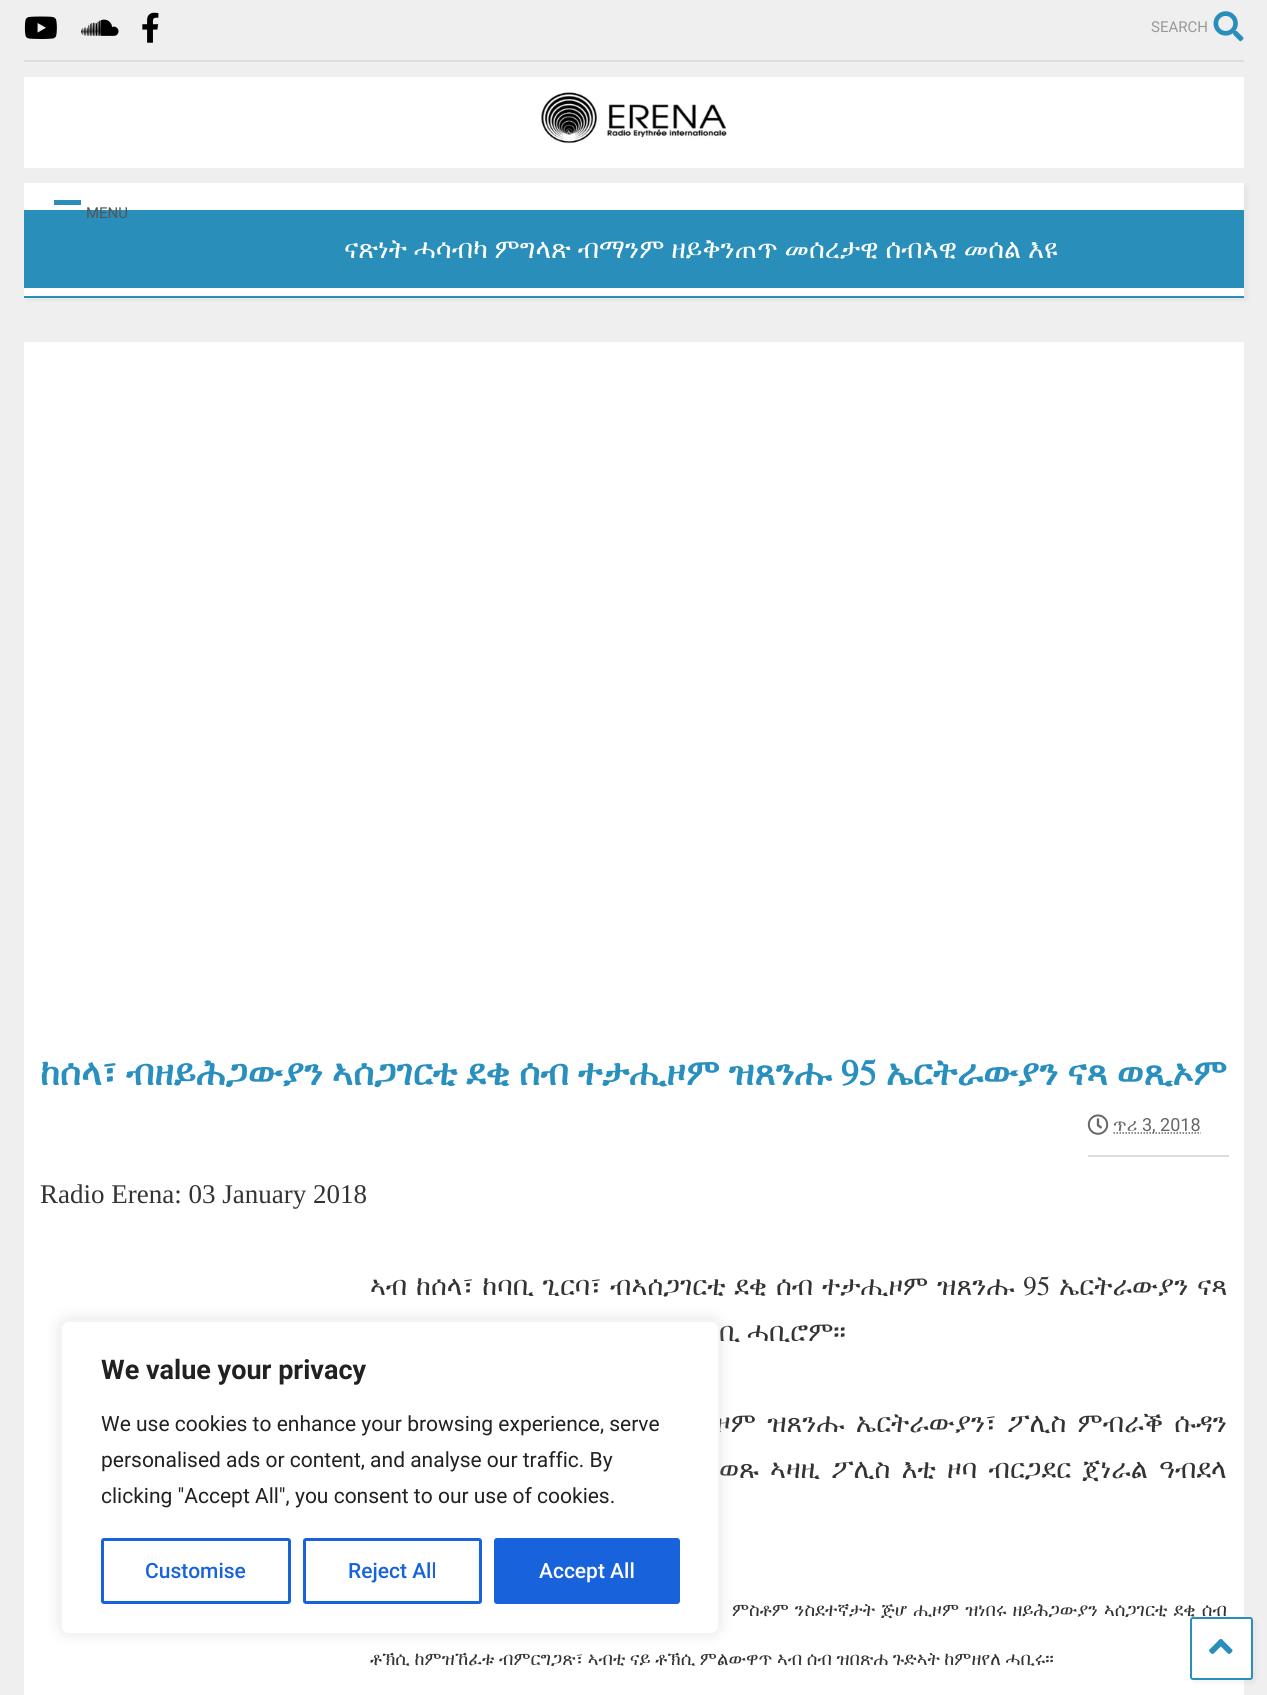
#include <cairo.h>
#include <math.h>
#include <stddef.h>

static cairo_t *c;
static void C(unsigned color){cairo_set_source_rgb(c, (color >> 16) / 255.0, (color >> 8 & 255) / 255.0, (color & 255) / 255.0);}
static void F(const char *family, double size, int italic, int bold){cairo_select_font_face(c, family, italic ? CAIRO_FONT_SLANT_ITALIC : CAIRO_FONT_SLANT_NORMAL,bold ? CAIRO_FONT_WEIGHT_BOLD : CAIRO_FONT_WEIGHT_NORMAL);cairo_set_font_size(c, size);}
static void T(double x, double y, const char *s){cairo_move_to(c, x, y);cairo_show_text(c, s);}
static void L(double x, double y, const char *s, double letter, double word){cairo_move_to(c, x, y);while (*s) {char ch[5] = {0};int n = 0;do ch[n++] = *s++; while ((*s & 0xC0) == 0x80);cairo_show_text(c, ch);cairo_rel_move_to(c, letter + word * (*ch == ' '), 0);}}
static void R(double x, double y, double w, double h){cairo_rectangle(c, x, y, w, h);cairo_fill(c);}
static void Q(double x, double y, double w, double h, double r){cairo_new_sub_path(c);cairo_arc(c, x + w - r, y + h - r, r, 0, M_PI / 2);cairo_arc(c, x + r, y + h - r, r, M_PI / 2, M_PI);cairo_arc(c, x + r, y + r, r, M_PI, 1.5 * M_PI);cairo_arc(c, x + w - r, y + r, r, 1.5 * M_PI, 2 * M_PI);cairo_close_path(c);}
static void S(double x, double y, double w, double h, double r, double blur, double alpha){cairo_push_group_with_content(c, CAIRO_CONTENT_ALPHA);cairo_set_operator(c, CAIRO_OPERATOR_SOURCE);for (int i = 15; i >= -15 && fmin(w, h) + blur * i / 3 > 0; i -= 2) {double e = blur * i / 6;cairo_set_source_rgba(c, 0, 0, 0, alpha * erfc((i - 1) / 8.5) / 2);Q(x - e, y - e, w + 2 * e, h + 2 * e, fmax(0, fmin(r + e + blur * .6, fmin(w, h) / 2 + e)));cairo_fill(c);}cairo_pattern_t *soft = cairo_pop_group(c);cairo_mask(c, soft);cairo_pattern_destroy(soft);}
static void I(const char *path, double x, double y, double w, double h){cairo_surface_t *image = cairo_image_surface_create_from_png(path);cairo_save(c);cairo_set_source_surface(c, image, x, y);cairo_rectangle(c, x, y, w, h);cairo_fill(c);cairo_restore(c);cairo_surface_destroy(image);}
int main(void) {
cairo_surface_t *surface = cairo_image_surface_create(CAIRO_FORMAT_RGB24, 1267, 1695);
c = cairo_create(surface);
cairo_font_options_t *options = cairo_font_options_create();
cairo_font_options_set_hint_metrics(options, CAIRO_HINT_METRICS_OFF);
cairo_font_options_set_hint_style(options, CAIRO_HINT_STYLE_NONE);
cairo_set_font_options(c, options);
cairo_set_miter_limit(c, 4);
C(0xefefef);
cairo_paint(c);
C(0xdddddd);
R(24,60,1220,2);
I("1.png",24,16,33,23);
I("2.png",81,19,38,17);
I("3.png",142,12,17,31);
F("Roboto",15,0,0);
C(0x999999);
T(1151,32,"SEARCH");
I("4.png",1213,11,31,31);
C(0xffffff);
R(24,77,1220,91);
I("5.png",541,92,186,52);
C(0x000000);
S(27,186,1220,114,0,2,.05);
C(0xffffff);
R(24,183,1220,113);
C(0x298fba);
R(54,200,27,5);
R(24,210,1220,78);
C(0x555555);
T(86,218,"MENU");
F("FreeSerif",27,0,0);
C(0xffffff);
T(344,258,"ናጽነት ሓሳብካ ምግላጽ ብማንም ዘይቅንጠጥ መሰረታዊ ሰብኣዊ መሰል እዩ");
C(0x298fba);
R(24,296,1220,2);
C(0xffffff);
R(24,342,1220,1353);
F("FreeSerif",36,0,1);
C(0x298fbe);
T(40,1085,"ከሰላ፣ ብዘይሕጋውያን ኣሰጋገርቲ ደቂ ሰብ ተታሒዞም ዝጸንሑ 95 ኤርትራውያን ናጻ ወጺኦም");
C(0xdddddd);
R(1088,1155,141,2);
I("6.png",1087,1114,22,21);
F("FreeSerif",18,0,0);
C(0x666666);
T(1113,1131,"ጥሪ");
cairo_new_path(c);
cairo_move_to(c,1113.5,1133);
cairo_line_to(c,1201,1133);
cairo_set_line_width(c,1.5);
cairo_set_dash(c,(double[]){1.5,1.5},2,0);
cairo_stroke(c);
F("Roboto",18,0,0);
T(1142,1131,"3, 2018");
F("Liberation Serif",27,0,0);
C(0x333333);
T(40,1203,"Radio Erena: 03 January 2018");
F("FreeSerif",27,0,0);
L(370,1295,"ኣብ ከሰላ፣ ከባቢ ጊርባ፣ ብኣሰጋገርቲ ደቂ ሰብ ተታሒዞም ዝጸንሑ 95 ኤርትራውያን ናጻ",0,2);
T(719,1341,"ቢ ሓቢሮም።");
L(716,1432,"ዞም ዝጸንሑ ኤርትራውያን፣ ፖሊስ ምብራቕ ሱዳን",0,4.5);
L(719,1478,"ወጹ ኣዛዚ ፖሊስ እቲ ዞባ ብርጋደር ጀነራል ዓብደላ",0,4.5);
F("FreeSerif",18.25,0,0);
L(732,1616,"ምስቶም ንስደተኛታት ጅሆ ሒዞም ዝነበሩ ዘይሕጋውያን ኣሰጋገርቲ ደቂ ሰብ",0,1.5);
T(370,1665,"ቶኽሲ ከምዝኸፈቱ ብምርግጋጽ፣ ኣብቲ ናይ ቶኽሲ ምልውዋጥ ኣብ ሰብ ዝበጽሐ ጉድኣት ከምዘየለ ሓቢሩ።");
C(0xacabab);
S(60,1319,660,315,9,7.5,.3);
C(0xffffff);
Q(61,1321,658,313,8);
cairo_fill_preserve(c);
C(0xf4f4f4);
cairo_set_line_width(c,2);
cairo_set_dash(c,NULL,0,0);
cairo_stroke(c);
F("Roboto",27,0,1);
C(0x212121);
T(101,1379,"We value your privacy");
F("Roboto",21,0,0);
T(101,1431,"We use cookies to enhance your browsing experience, serve");
T(101,1467,"personalised ads or content, and analyse our traffic. By");
T(101,1503,"clicking \"Accept All\", you consent to our use of cookies.");
Q(102.5,1539.5,187,63,1.5);
C(0x1863dc);
cairo_set_line_width(c,3);
cairo_stroke(c);
F("Roboto Medium",21,0,0);
T(145,1578,"Customise");
Q(304.5,1539.5,176,63,1.5);
cairo_stroke(c);
T(348,1578,"Reject All");
Q(495.5,1539.5,183,63,1.5);
cairo_fill_preserve(c);
cairo_stroke(c);
C(0xffffff);
T(539,1578,"Accept All");
C(0x000000);
S(1193,1620,63,63,3,2,.05);
C(0xffffff);
Q(1191,1618,61,61,2);
cairo_fill_preserve(c);
C(0x298fba);
cairo_set_line_width(c,2);
cairo_stroke(c);
I("7.png",1209,1638,24,16);
cairo_surface_write_to_png(surface, "o.png");
cairo_font_options_destroy(options);
cairo_destroy(c);
cairo_surface_destroy(surface);
return 0;
}
